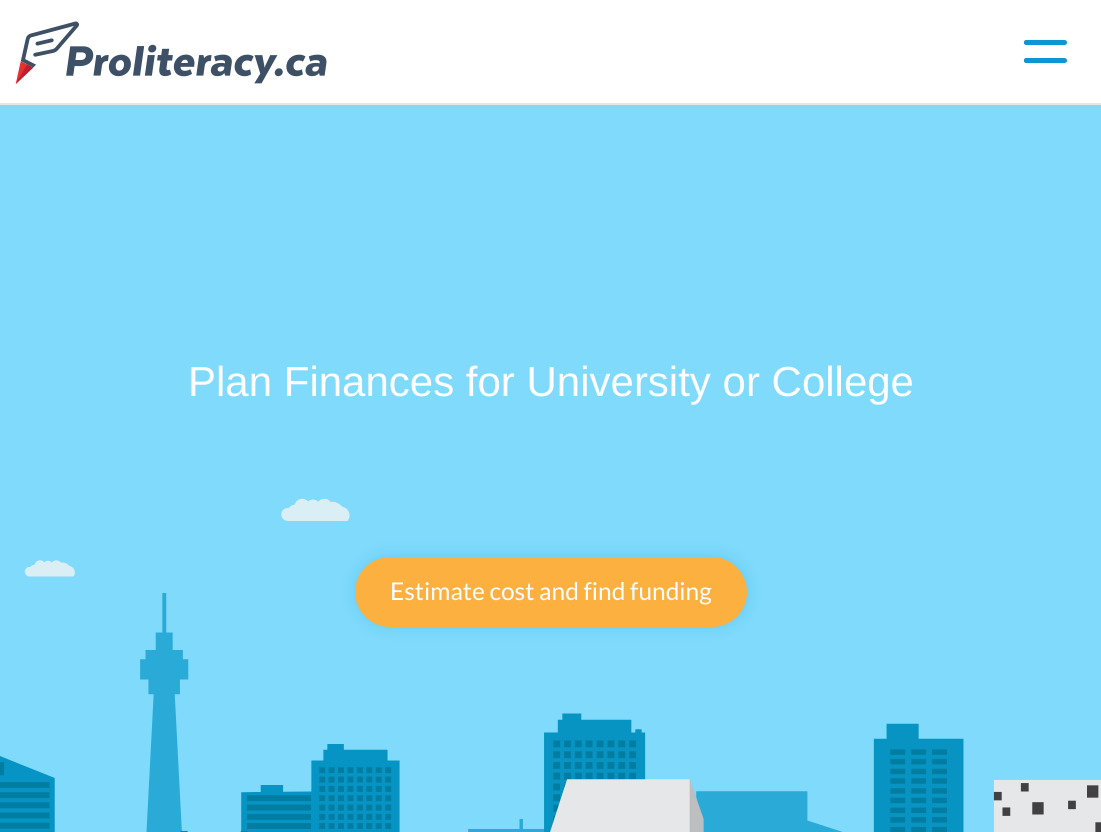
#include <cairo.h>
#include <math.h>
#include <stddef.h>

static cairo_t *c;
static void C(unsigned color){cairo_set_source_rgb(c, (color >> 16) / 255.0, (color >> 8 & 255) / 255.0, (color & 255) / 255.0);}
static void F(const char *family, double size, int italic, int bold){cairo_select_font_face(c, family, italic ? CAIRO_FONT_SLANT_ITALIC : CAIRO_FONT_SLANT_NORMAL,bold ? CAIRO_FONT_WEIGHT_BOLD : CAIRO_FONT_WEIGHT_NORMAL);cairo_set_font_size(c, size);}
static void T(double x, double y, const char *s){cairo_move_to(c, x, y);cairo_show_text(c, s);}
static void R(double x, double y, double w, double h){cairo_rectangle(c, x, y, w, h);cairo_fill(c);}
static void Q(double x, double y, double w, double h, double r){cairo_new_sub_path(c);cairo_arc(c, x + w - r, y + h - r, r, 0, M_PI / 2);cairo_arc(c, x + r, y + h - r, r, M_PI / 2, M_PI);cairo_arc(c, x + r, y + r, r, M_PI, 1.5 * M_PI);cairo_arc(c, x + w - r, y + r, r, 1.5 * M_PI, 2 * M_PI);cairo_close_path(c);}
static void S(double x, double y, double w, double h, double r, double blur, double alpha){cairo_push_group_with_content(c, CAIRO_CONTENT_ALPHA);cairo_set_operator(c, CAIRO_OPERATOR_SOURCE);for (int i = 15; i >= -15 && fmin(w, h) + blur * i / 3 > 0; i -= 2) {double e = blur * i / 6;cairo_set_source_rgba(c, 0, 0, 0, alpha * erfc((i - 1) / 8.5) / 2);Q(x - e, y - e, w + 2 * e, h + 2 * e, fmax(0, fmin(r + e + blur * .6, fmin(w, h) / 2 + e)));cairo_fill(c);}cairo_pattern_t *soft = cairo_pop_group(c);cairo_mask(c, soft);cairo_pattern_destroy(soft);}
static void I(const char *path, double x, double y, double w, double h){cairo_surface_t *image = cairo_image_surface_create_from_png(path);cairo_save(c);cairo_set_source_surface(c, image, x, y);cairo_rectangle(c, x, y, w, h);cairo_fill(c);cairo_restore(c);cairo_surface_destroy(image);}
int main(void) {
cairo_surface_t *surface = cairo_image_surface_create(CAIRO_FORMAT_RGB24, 1101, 832);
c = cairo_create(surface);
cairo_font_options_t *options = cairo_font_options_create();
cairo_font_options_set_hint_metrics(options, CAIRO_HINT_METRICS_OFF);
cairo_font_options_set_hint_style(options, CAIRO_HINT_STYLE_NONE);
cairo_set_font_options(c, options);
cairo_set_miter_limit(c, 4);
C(0xffffff);
cairo_paint(c);
C(0xe6e6e6);
R(0,103,1101,2);
I("1.png",15,21,312,63);
I("2.png",1024,39,43,25);
C(0x7fdafc);
R(0,105,1101,364);
F("Liberation Sans",42,0,0);
C(0xffffff);
T(188,396,"Plan Finances for University or College");
I("3.png",0,469,1101,363);
C(0x0f96d2);
S(354,555,395,73,36.5,7,.2);
C(0xfbb040);
Q(355,557,392,70,35);
cairo_fill(c);
F("Lato",24.5,0,0);
C(0xffffff);
T(390,600,"Estimate cost and find funding");
cairo_surface_write_to_png(surface, "o.png");
cairo_font_options_destroy(options);
cairo_destroy(c);
cairo_surface_destroy(surface);
return 0;
}
